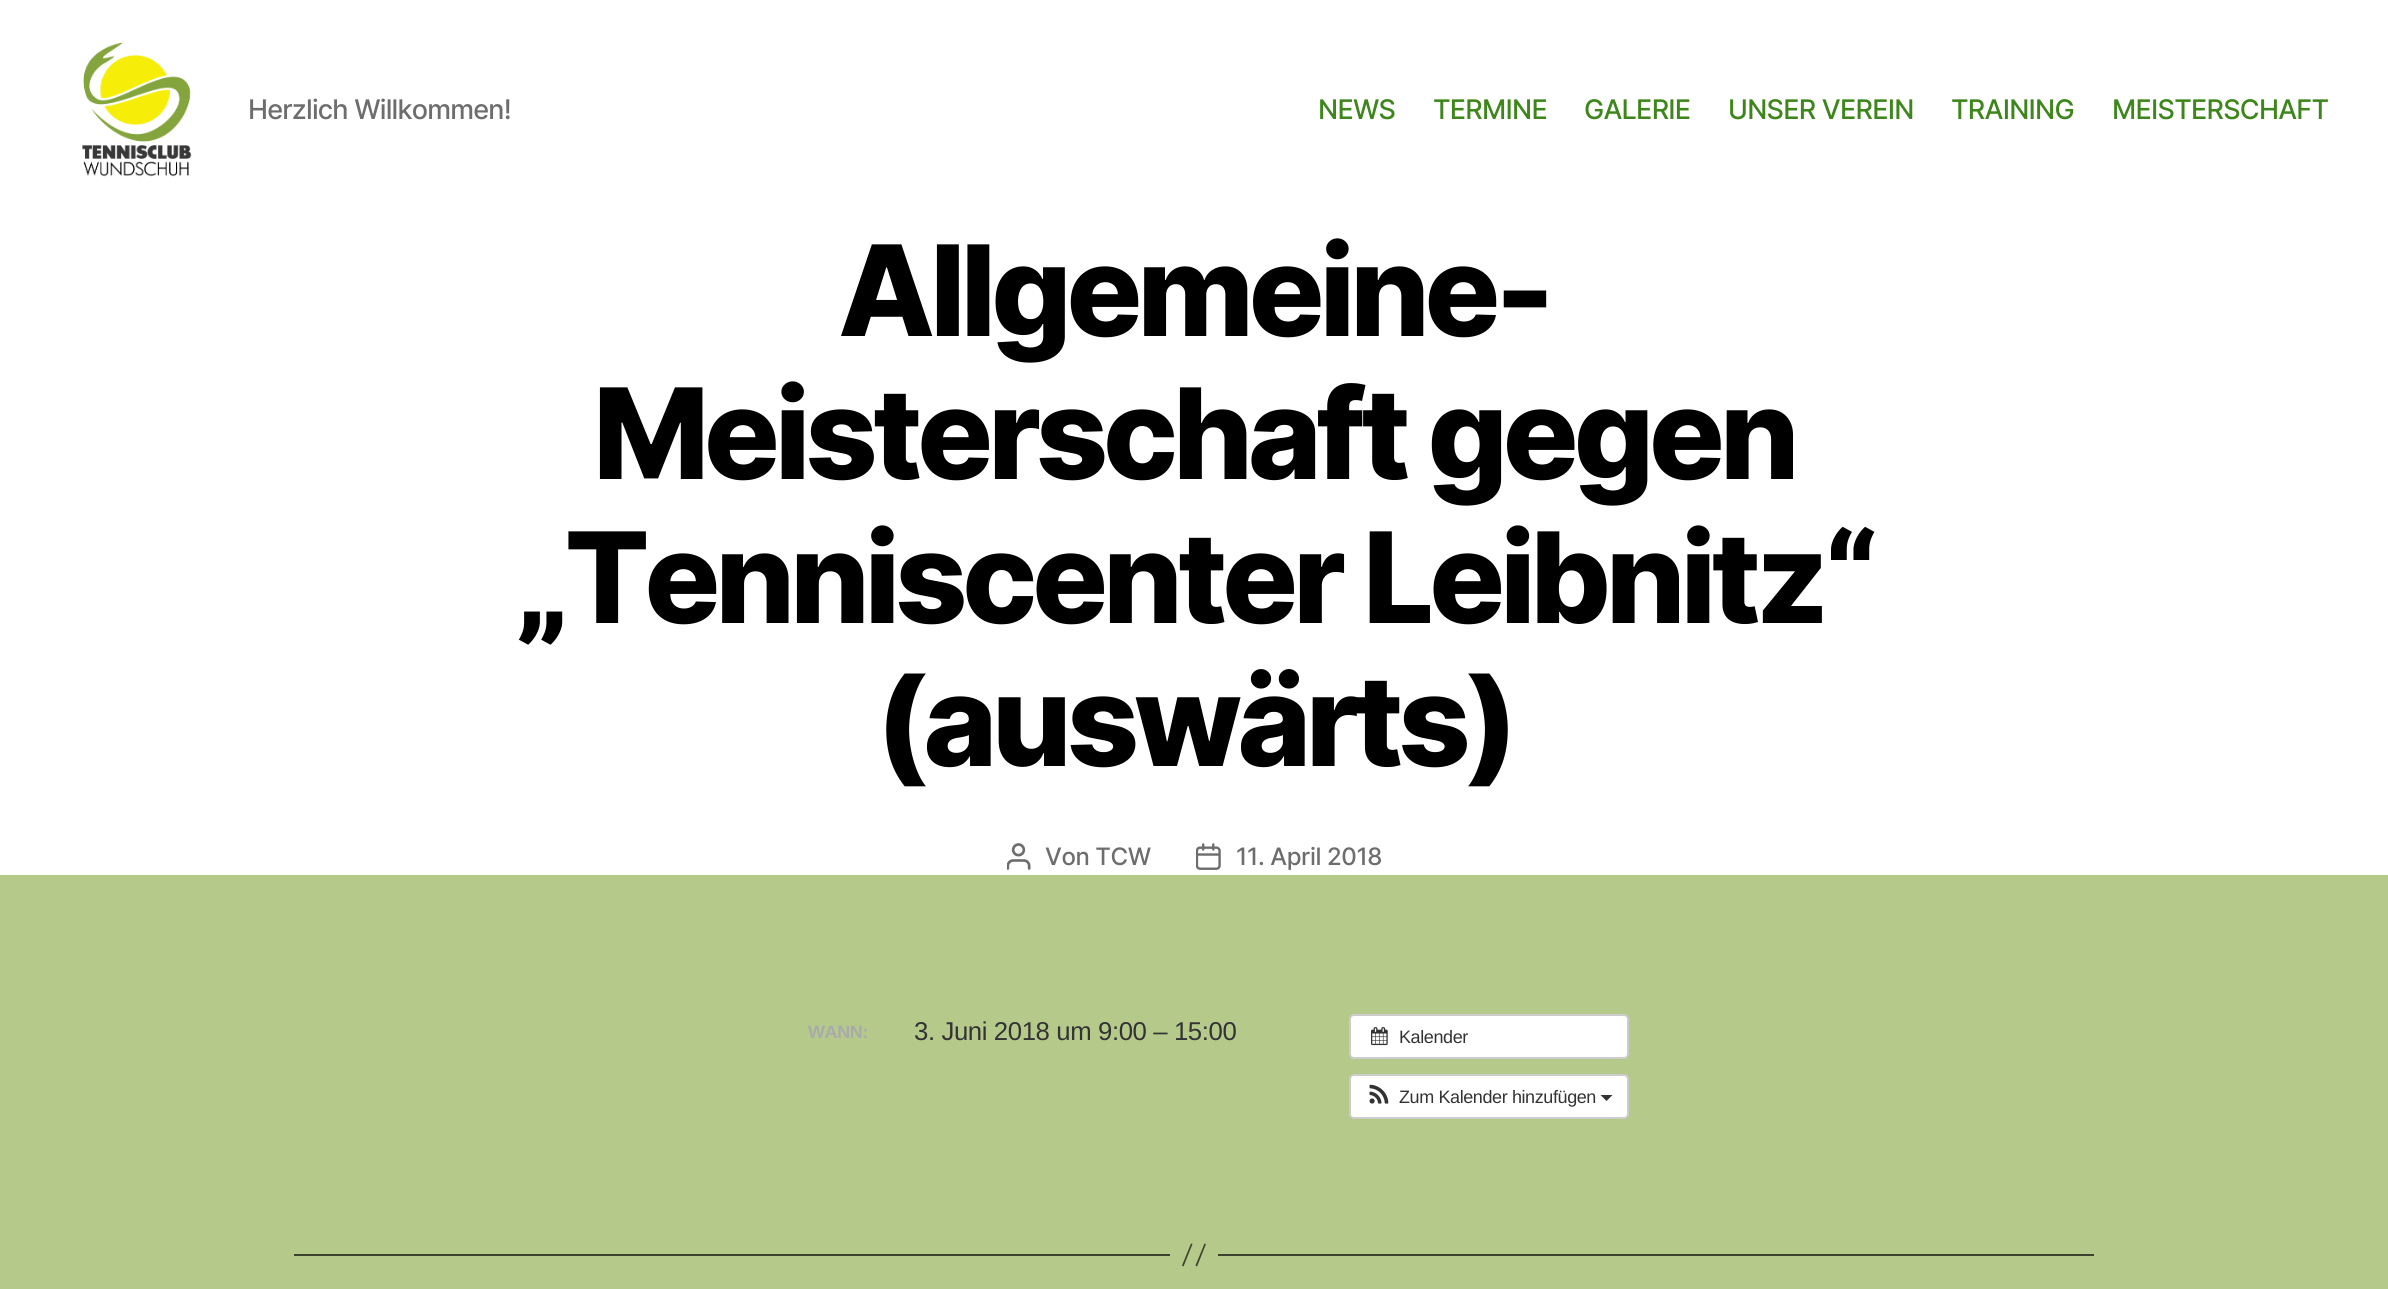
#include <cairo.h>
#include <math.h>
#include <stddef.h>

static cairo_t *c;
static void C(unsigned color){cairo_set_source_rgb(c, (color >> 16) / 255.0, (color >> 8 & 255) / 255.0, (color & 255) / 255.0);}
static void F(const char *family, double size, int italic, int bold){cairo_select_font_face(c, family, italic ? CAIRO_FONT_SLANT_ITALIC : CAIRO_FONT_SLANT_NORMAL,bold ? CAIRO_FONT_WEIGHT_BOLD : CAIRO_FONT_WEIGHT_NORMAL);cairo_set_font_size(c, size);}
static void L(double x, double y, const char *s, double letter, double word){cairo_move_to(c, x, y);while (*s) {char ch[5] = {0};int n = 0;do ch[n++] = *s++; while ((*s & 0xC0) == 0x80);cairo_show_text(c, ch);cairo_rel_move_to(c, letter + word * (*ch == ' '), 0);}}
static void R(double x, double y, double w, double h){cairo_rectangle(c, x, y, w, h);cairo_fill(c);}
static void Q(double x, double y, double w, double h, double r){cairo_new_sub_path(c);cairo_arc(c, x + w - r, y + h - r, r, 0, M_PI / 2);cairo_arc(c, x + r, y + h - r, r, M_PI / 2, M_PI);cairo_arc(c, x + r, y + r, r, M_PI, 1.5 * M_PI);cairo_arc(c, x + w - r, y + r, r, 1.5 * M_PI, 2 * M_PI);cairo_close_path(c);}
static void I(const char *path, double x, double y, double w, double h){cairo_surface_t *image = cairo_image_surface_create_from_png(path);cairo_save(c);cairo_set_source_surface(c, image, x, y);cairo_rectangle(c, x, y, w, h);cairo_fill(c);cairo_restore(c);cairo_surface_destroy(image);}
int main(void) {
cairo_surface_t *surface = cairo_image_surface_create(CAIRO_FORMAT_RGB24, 2388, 1289);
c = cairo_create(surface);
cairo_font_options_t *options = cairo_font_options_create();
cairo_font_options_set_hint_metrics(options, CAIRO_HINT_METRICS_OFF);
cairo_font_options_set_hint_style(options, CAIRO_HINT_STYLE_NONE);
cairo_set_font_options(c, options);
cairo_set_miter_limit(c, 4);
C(0xb5c98b);
cairo_paint(c);
C(0xffffff);
R(0,0,2388,875);
I("1.png",82,42,110,135);
F("Inter Medium",27,0,0);
C(0x6d6d6d);
L(248,119,"Herzlich Willkommen!",-.8,0);
C(0x3e861c);
L(1318,119,"NEWS",-.75,0);
L(1433,119,"TERMINE",-.75,0);
L(1584,119,"GALERIE",-.75,0);
L(1728,119,"UNSER VEREIN",-.75,0);
L(1951,119,"TRAINING",-.75,0);
L(2112,119,"MEISTERSCHAFT",-.75,0);
F("Inter ExtraBold",126,0,0);
C(0x000000);
L(838,336,"Allgemeine-",-5.25,0);
L(593,479,"Meisterschaft gegen",-5.25,0);
L(515,623,"„Tenniscenter Leibnitz“",-5.25,0);
L(875,766,"(auswärts)",-5.25,0);
I("2.png",1007,843,24,27);
F("Inter Medium",24,0,0);
C(0x6d6d6d);
L(1045,865,"Von TCW",-.4,0);
I("3.png",1196,843,25,27);
L(1236,865,"11. April 2018",-.4,0);
F("Liberation Sans",18,0,1);
C(0xaaaaaa);
L(808,1038,"WANN:",-.4,0);
F("Liberation Sans",25.75,0,0);
C(0x333333);
L(914,1040,"3. Juni 2018 um 9:00 – 15:00",-.4,0);
C(0xffffff);
Q(1350,1015,278,43,4);
cairo_fill_preserve(c);
C(0xcccccc);
cairo_stroke(c);
I("4.png",1371,1027,17,19);
F("Liberation Sans",18,0,0);
C(0x333333);
L(1399,1043,"Kalender",-.4,0);
C(0xffffff);
Q(1350,1075,278,43,4);
cairo_fill_preserve(c);
C(0xcccccc);
cairo_stroke(c);
I("5.png",1369,1084,20,20);
C(0x333333);
L(1399,1103,"Zum Kalender hinzufügen",-.4,0);
cairo_new_path(c);
cairo_move_to(c,1600.5,1095);
cairo_line_to(c,1612.5,1095);
cairo_line_to(c,1606.5,1101);
cairo_close_path(c);
cairo_fill(c);
C(0x3c422e);
R(1218,1254,876,2);
R(294,1254,876,2);
cairo_new_path(c);
cairo_move_to(c,1191,1243.5);
cairo_line_to(c,1192.5,1244);
cairo_line_to(c,1183.5,1266.5);
cairo_line_to(c,1182,1265.5);
cairo_close_path(c);
cairo_move_to(c,1204.5,1243.5);
cairo_line_to(c,1206,1244);
cairo_line_to(c,1197,1266.5);
cairo_line_to(c,1195.5,1265.5);
cairo_close_path(c);
cairo_fill(c);
cairo_surface_write_to_png(surface, "o.png");
cairo_font_options_destroy(options);
cairo_destroy(c);
cairo_surface_destroy(surface);
return 0;
}
